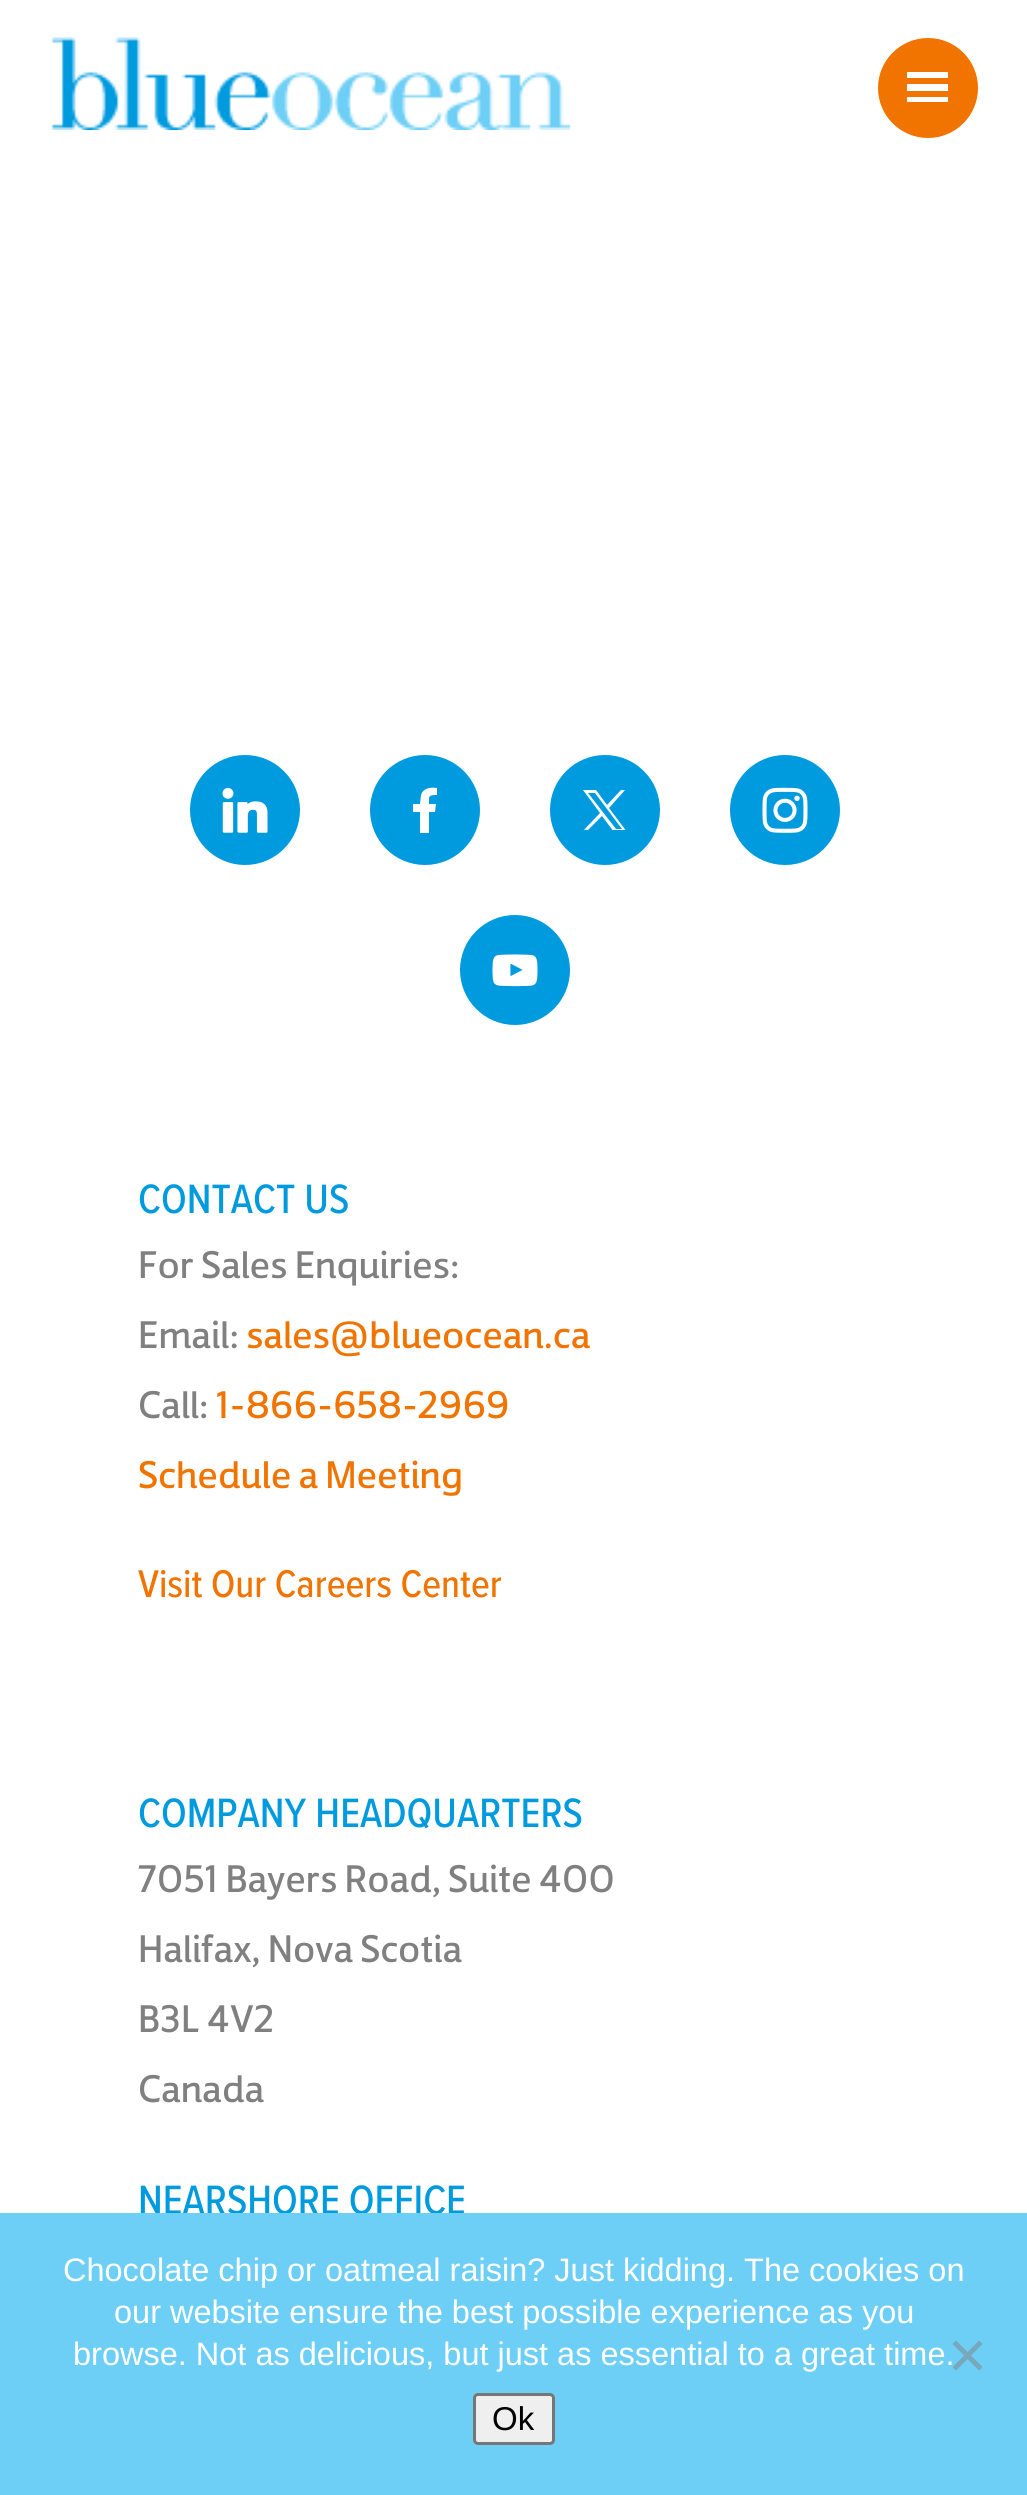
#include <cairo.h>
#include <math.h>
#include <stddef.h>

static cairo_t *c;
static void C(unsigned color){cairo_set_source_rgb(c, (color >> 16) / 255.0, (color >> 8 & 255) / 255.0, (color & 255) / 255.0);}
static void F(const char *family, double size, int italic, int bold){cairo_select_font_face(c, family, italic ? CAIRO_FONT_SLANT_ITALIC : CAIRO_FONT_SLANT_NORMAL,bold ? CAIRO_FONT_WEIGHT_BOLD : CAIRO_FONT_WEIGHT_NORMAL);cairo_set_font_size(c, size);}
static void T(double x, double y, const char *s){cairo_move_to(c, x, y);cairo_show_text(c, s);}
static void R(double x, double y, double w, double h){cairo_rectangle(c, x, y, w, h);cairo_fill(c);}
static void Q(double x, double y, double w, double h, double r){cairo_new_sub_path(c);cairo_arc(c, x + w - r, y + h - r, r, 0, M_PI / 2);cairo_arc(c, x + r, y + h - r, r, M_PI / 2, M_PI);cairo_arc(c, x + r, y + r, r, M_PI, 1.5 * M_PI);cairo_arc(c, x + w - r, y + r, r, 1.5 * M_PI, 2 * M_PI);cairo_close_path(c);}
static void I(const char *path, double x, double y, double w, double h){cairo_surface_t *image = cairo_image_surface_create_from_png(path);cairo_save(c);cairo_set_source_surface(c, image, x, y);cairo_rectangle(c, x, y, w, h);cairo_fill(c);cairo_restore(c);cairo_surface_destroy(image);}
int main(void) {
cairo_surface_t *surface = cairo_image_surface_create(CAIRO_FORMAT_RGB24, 1027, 2495);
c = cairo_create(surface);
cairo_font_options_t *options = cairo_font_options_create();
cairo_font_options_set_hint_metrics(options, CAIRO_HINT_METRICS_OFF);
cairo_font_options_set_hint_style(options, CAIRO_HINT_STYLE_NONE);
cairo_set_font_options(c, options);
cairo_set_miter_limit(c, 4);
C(0xffffff);
cairo_paint(c);
I("1.png",51,37,520,93);
C(0xf17400);
cairo_arc(c,928,88,50,0,2 * M_PI);
cairo_fill(c);
C(0xffffff);
cairo_new_path(c);
cairo_move_to(c,907,102);
cairo_line_to(c,948,102);
cairo_line_to(c,948,97);
cairo_line_to(c,907,97);
cairo_close_path(c);
cairo_move_to(c,907,72);
cairo_line_to(c,907,78);
cairo_line_to(c,948,78);
cairo_line_to(c,948,72);
cairo_close_path(c);
cairo_move_to(c,907,91);
cairo_line_to(c,948,91);
cairo_line_to(c,948,84);
cairo_line_to(c,907,84);
cairo_close_path(c);
cairo_fill(c);
C(0x009bdf);
cairo_arc(c,245,810,55,0,2 * M_PI);
cairo_fill(c);
I("2.png",222,787,46,46);
cairo_arc(c,425,810,55,0,2 * M_PI);
cairo_fill(c);
C(0xffffff);
cairo_new_path(c);
cairo_move_to(c,429,833);
cairo_line_to(c,429,812);
cairo_line_to(c,435,812);
cairo_line_to(c,436,804);
cairo_line_to(c,429,804);
cairo_curve_to(c,429,796,428,795,437,795);
cairo_line_to(c,437,788);
cairo_curve_to(c,431,787,423,788,421,795);
cairo_line_to(c,420,804);
cairo_line_to(c,413,804);
cairo_line_to(c,413,812);
cairo_line_to(c,420,812);
cairo_line_to(c,420,833);
cairo_close_path(c);
cairo_fill(c);
C(0x009bdf);
cairo_arc(c,605,810,55,0,2 * M_PI);
cairo_fill(c);
cairo_save(c);
cairo_rectangle(c,583,790,45,40);
cairo_clip(c);
C(0xffffff);
cairo_new_path(c);
cairo_move_to(c,586,832);
cairo_line_to(c,602,816);
cairo_line_to(c,614,832);
cairo_line_to(c,627,832);
cairo_line_to(c,609,808);
cairo_line_to(c,625,790);
cairo_line_to(c,621,790);
cairo_line_to(c,607,805);
cairo_line_to(c,596,790);
cairo_line_to(c,583,790);
cairo_line_to(c,600,813);
cairo_line_to(c,582,832);
cairo_close_path(c);
cairo_move_to(c,588,793);
cairo_line_to(c,595,793);
cairo_line_to(c,622,829);
cairo_line_to(c,616,829);
cairo_close_path(c);
cairo_fill(c);
cairo_restore(c);
cairo_arc(c,785,810,55,0,2 * M_PI);
cairo_fill(c);
I("3.png",762,787,46,46);
cairo_arc(c,515,970,55,0,2 * M_PI);
cairo_fill(c);
I("4.png",492,954,46,33);
F("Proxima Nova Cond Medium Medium",42.5,0,0);
T(138,1213,"CONTACT US");
F("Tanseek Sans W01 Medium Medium",40,0,0);
C(0x808080);
T(138,1278,"For Sales Enquiries:");
T(138,1348,"Email:");
C(0xf17400);
T(246,1348,"sales@blueocean.ca");
C(0x808080);
T(138,1418,"Call:");
C(0xf17400);
T(216,1418,"1-866-658-2969");
T(138,1488,"Schedule a Meeting");
F("Proxima Nova Cond Medium Medium",40,0,0);
T(138,1597,"Visit Our Careers Center");
F("Proxima Nova Cond Medium Medium",42.5,0,0);
C(0x009bdf);
T(138,1827,"COMPANY HEADQUARTERS");
F("Tanseek Sans W01 Medium Medium",40,0,0);
C(0x808080);
T(138,1892,"7051 Bayers Road, Suite 400");
T(138,1962,"Halifax, Nova Scotia");
T(138,2032,"B3L 4V2");
T(138,2102,"Canada");
F("Proxima Nova Cond Medium Medium",42.5,0,0);
C(0x009bdf);
T(138,2214,"NEARSHORE OFFICE");
C(0x6dcff6);
R(0,2213,1027,282);
F("Liberation Sans",32.5,0,0);
C(0xffffff);
T(63,2281,"Chocolate chip or oatmeal raisin? Just kidding. The cookies on");
T(114,2323,"our website ensure the best possible experience as you");
T(73,2365,"browse. Not as delicious, but just as essential to a great time.");
C(0x77a8bb);
cairo_new_path(c);
cairo_move_to(c,979,2340.5);
cairo_line_to(c,982.5,2344);
cairo_line_to(c,956,2370.5);
cairo_line_to(c,952.5,2367);
cairo_close_path(c);
cairo_fill(c);
cairo_new_path(c);
cairo_move_to(c,952.5,2344);
cairo_line_to(c,956,2340.5);
cairo_line_to(c,982.5,2367);
cairo_line_to(c,979,2370.5);
cairo_close_path(c);
cairo_fill(c);
C(0xefefef);
Q(474.5,2394.5,79,49,3.5);
cairo_fill_preserve(c);
C(0x767676);
cairo_set_line_width(c,3);
cairo_stroke(c);
F("Liberation Sans",33,0,0);
C(0x000000);
T(492,2430,"Ok");
cairo_surface_write_to_png(surface, "o.png");
cairo_font_options_destroy(options);
cairo_destroy(c);
cairo_surface_destroy(surface);
return 0;
}
